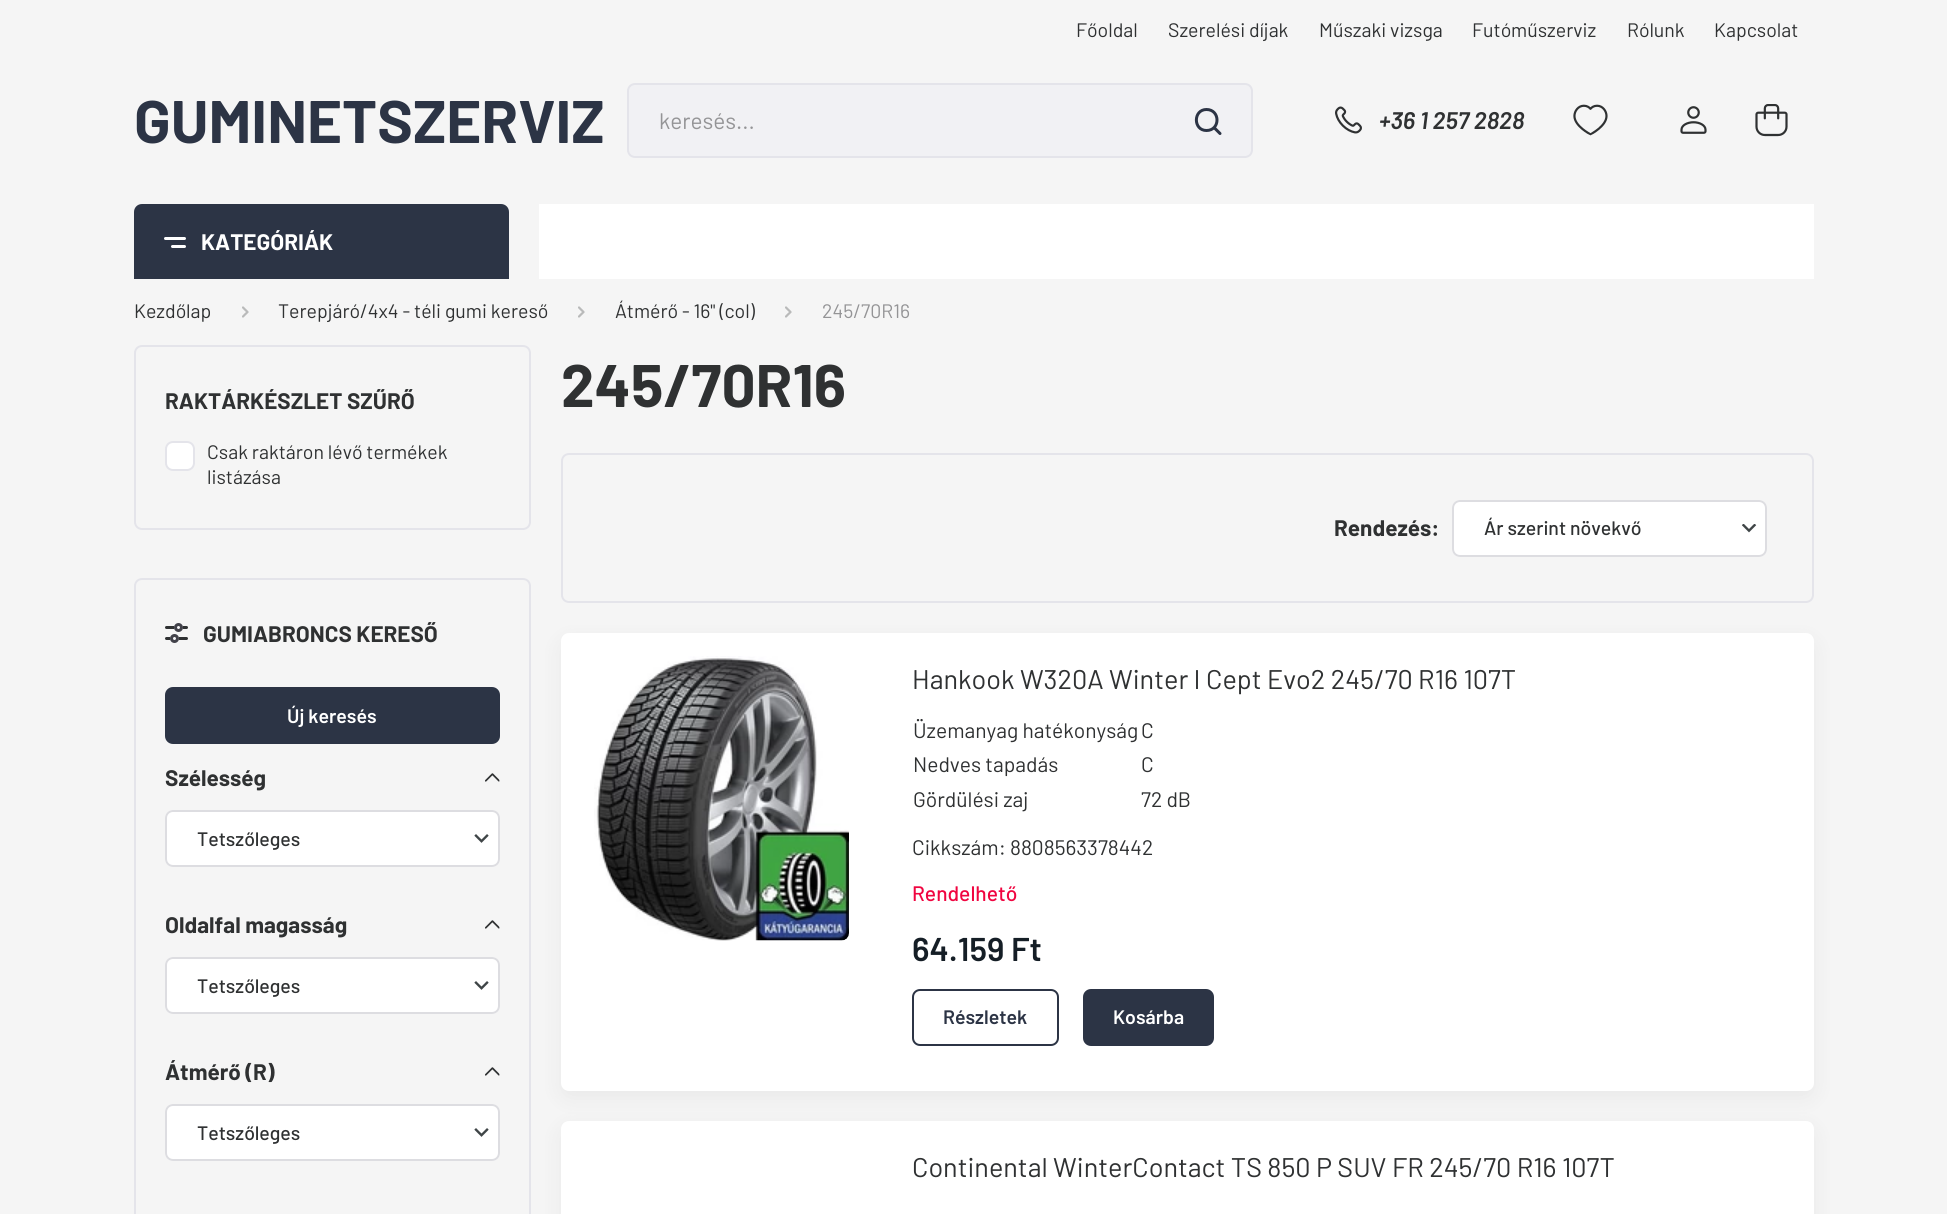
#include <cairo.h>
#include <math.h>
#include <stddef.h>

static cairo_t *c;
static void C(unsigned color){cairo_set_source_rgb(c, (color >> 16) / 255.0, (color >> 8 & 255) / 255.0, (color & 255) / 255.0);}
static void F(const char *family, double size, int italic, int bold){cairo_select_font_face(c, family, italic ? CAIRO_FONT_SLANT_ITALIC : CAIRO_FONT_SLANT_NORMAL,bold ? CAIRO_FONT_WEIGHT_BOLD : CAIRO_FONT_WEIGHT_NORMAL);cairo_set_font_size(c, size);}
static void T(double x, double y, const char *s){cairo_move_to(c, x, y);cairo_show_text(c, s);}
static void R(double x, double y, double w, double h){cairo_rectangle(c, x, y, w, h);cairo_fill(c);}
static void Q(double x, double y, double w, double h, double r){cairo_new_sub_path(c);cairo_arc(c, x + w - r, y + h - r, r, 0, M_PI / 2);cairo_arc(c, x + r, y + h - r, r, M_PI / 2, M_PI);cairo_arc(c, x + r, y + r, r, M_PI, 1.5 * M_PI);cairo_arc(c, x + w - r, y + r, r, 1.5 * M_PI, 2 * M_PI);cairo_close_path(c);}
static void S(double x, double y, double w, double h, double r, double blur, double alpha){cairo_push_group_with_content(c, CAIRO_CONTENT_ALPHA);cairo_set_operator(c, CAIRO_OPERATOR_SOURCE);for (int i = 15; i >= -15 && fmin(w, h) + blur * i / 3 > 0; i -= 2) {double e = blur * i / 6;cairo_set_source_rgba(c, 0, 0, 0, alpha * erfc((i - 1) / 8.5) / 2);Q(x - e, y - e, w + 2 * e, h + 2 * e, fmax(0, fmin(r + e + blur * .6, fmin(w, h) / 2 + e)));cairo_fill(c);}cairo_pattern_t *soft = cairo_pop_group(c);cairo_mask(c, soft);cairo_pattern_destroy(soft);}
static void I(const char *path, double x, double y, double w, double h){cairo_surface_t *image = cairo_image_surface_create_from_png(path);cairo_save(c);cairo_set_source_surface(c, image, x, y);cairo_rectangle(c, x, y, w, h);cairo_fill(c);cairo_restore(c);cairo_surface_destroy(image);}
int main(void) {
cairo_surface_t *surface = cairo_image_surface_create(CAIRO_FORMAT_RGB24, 1947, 1214);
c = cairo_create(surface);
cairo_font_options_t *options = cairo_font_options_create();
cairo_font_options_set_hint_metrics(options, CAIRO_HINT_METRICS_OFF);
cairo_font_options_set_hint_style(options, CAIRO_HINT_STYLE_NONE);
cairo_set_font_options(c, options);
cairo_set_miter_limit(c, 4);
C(0xf5f5f5);
cairo_paint(c);
F("Barlow",19.5,0,0);
C(0x2f3132);
T(1076,37,"Főoldal");
T(1168,37,"Szerelési díjak");
T(1319,37,"Műszaki vizsga");
T(1472,37,"Futóműszerviz");
T(1627,37,"Rólunk");
T(1714,37,"Kapcsolat");
F("Barlow",60,0,1);
C(0x2c3445);
T(134,143,"GUMINETSZERVIZ");
C(0xf1f1f4);
Q(628,84,624,73,7);
cairo_fill_preserve(c);
C(0xe4e4ea);
cairo_stroke(c);
F("Barlow",22.5,0,0);
C(0x949496);
T(659,129,"keresés...");
cairo_new_path(c);
cairo_move_to(c,1220,133.5);
cairo_line_to(c,1214,127.5);
cairo_move_to(c,1206.5,130.5);
cairo_curve_to(c,1193,130.5,1193,109.5,1206.5,109.5);
cairo_curve_to(c,1220.5,109.5,1220.5,130.5,1206.5,130.5);
cairo_close_path(c);
C(0x2c3445);
cairo_set_line_width(c,3);
cairo_set_line_cap(c,CAIRO_LINE_CAP_ROUND);
cairo_set_line_join(c,CAIRO_LINE_JOIN_ROUND);
cairo_stroke(c);
I("1.png",1335,106,27,28);
F("Barlow SemiBold",24,1,0);
C(0x2f3132);
T(1379,129,"+36 1 257 2828");
I("2.png",1573,104,35,32);
I("3.png",1680,106,27,28);
I("4.png",1755,104,33,33);
C(0x2c3445);
cairo_new_path(c);
cairo_move_to(c,142,204);
cairo_line_to(c,501,204);
cairo_curve_to(c,505.5,204,509,207.5,509,212);
cairo_line_to(c,509,279);
cairo_line_to(c,134,279);
cairo_line_to(c,134,212);
cairo_curve_to(c,134,207.5,137.5,204,142,204);
cairo_close_path(c);
cairo_fill(c);
C(0xffffff);
Q(164,237,22,3,1.5);
cairo_fill(c);
Q(171,245,15,3,1.5);
cairo_fill(c);
F("Barlow",22.5,0,1);
T(201,250,"KATEGÓRIÁK");
R(539,204,1275,75);
F("Barlow",19.5,0,0);
C(0x2f3132);
T(134,318,"Kezdőlap");
I("5.png",242,306,7,12);
T(278,318,"Terepjáró/4x4 - téli gumi kereső");
I("5.png",578,306,7,12);
T(615,318,"Átmérő - 16\" (col)");
I("5.png",785,306,7,12);
C(0x949496);
T(822,318,"245/70R16");
Q(135,346,395,183,7);
C(0xe4e4ea);
cairo_set_line_width(c,2);
cairo_set_line_cap(c,CAIRO_LINE_CAP_BUTT);
cairo_set_line_join(c,CAIRO_LINE_JOIN_MITER);
cairo_stroke(c);
F("Barlow",22.5,0,1);
C(0x2f3132);
T(165,409,"RAKTÁRKÉSZLET SZŰRŐ");
C(0xffffff);
Q(166,442,28,28,7);
cairo_fill_preserve(c);
C(0xe4e4ea);
cairo_stroke(c);
F("Barlow",19.5,0,0);
C(0x2f3132);
T(207,459,"Csak raktáron lévő termékek");
T(207,484,"listázása");
Q(135,579,395,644,7);
C(0xe4e4ea);
cairo_stroke(c);
I("6.png",165,623,23,20);
F("Barlow",22.5,0,1);
C(0x2f3132);
T(203,642,"GUMIABRONCS KERESŐ");
C(0x2c3445);
Q(165,687,335,57,8);
cairo_fill(c);
F("Barlow SemiBold",19.5,0,0);
C(0xffffff);
T(287,723,"Új keresés");
F("Barlow",22.5,0,1);
C(0x2f3132);
T(165,786,"Szélesség");
I("7.png",485,773,15,9);
C(0xffffff);
Q(165,810,335,57,8);
cairo_fill(c);
I("8.png",474,834,15,9);
Q(166,811,333,55,7);
C(0xdddde1);
cairo_stroke(c);
F("Barlow Medium",19.5,0,0);
C(0x2f3132);
T(197,846,"Tetszőleges");
F("Barlow",22.5,0,1);
T(165,933,"Oldalfal magasság");
I("7.png",485,920,15,9);
C(0xffffff);
Q(165,957,335,57,8);
cairo_fill(c);
I("8.png",474,981,15,9);
Q(166,958,333,55,7);
C(0xdddde1);
cairo_stroke(c);
F("Barlow Medium",19.5,0,0);
C(0x2f3132);
T(197,993,"Tetszőleges");
F("Barlow",22.5,0,1);
T(165,1080,"Átmérő (R)");
I("7.png",485,1067,15,9);
C(0xffffff);
Q(165,1104,335,57,8);
cairo_fill(c);
I("8.png",474,1128,15,9);
Q(166,1105,333,55,7);
C(0xdddde1);
cairo_stroke(c);
F("Barlow Medium",19.5,0,0);
C(0x2f3132);
T(197,1140,"Tetszőleges");
F("Barlow",60,0,1);
T(561,407,"245/70R16");
Q(562,454,1251,148,7);
C(0xe4e4ea);
cairo_stroke(c);
F("Barlow",22.5,0,1);
C(0x2f3132);
T(1334,536,"Rendezés:");
C(0xffffff);
Q(1452,500,315,57,8);
cairo_fill(c);
I("9.png",1742,524,15,9);
Q(1453,501,313,55,7);
C(0xdddde1);
cairo_stroke(c);
F("Barlow Medium",19.5,0,0);
C(0x2f3132);
T(1484,535,"Ár szerint növekvő");
C(0x000000);
S(561,641,1253,457,8,11,.05);
C(0xffffff);
Q(561,633,1253,458,8);
cairo_fill(c);
I("10.png",594,656,255,285);
F("Barlow",27,0,0);
C(0x2f3132);
T(912,689,"Hankook W320A Winter I Cept Evo2 245/70 R16 107T");
F("Barlow",21,0,0);
T(913,738,"Üzemanyag hatékonyság");
T(1141,738,"C");
T(913,772,"Nedves tapadás");
T(1141,772,"C");
T(913,807,"Gördülési zaj");
T(1141,807,"72 dB");
T(912,855,"Cikkszám: 8808563378442");
F("Barlow Medium",21,0,0);
C(0xf00540);
T(912,901,"Rendelhető");
F("Barlow SemiBold",33,0,0);
C(0x151e26);
T(912,961,"64.159 Ft");
Q(913,990,145,55,7);
C(0x2c3445);
cairo_stroke(c);
F("Barlow SemiBold",19.5,0,0);
T(943,1024,"Részletek");
Q(1083,989,131,57,8);
cairo_fill(c);
C(0xffffff);
T(1113,1024,"Kosárba");
C(0x000000);
S(561,1128,1253,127,8,11,.05);
C(0xffffff);
Q(561,1121,1253,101,8);
cairo_fill(c);
F("Barlow",27,0,0);
C(0x2f3132);
T(912,1177,"Continental WinterContact TS 850 P SUV FR 245/70 R16 107T");
cairo_surface_write_to_png(surface, "o.png");
cairo_font_options_destroy(options);
cairo_destroy(c);
cairo_surface_destroy(surface);
return 0;
}
